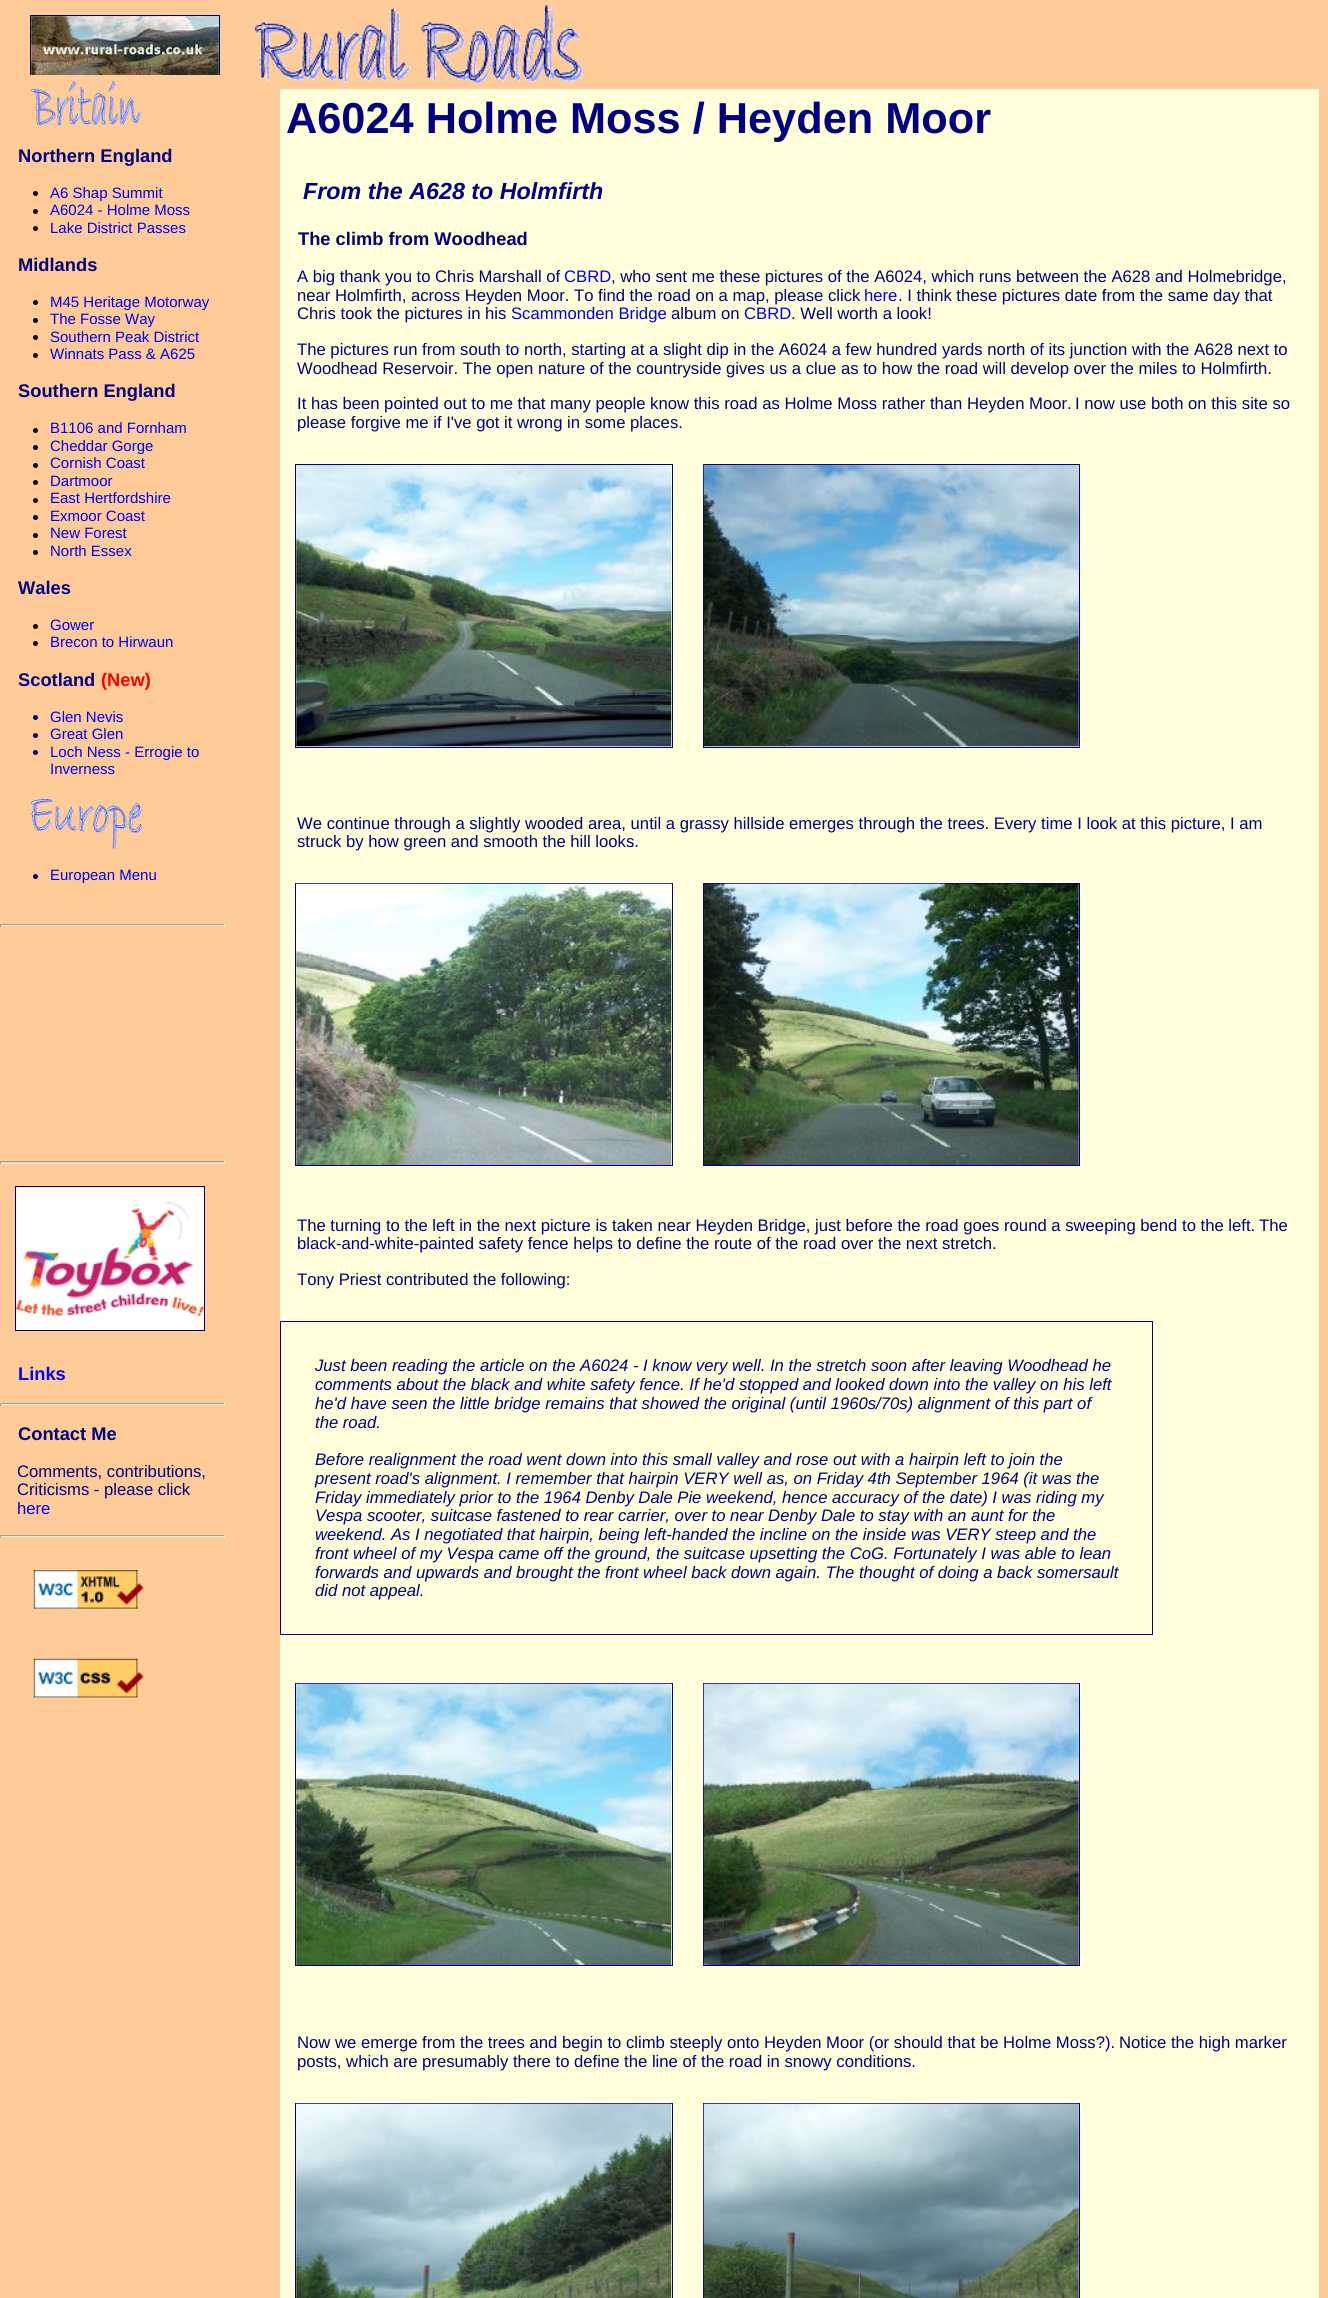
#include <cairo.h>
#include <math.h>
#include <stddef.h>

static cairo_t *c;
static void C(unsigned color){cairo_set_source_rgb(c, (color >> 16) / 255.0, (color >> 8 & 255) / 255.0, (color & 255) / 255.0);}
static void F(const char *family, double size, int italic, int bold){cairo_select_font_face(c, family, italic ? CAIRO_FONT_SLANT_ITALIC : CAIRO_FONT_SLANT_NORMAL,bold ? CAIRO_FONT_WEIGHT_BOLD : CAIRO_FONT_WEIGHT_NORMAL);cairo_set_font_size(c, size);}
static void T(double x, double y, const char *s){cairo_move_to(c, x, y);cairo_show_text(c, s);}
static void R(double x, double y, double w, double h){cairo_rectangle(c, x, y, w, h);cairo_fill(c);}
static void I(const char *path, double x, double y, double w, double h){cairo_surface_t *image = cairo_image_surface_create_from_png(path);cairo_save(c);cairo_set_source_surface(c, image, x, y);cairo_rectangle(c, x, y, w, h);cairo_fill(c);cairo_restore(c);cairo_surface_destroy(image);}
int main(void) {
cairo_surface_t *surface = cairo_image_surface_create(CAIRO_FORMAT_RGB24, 1328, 2298);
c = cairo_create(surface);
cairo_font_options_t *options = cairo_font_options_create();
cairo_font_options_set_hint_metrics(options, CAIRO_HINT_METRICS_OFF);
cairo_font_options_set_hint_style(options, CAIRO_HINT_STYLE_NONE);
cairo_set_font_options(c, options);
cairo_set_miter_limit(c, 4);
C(0xffcc99);
cairo_paint(c);
cairo_rectangle(c,30.5,15.5,189,60);
C(0x000080);
cairo_set_line_width(c,1);
cairo_stroke(c);
I("1.png",31,16,188,59);
I("2.png",255,5,328,79);
C(0xffcc99);
R(30,75,190,1);
I("3.png",31,80,112,47);
F("Liberation Sans",18.3,0,1);
C(0x000080);
T(18,162,"Northern England");
C(0x000000);
cairo_new_path(c);
cairo_arc(c,35.5,193.5,2.5,0,2 * M_PI);
cairo_fill(c);
F("Liberation Sans",15,0,0);
C(0x0000ee);
T(50,198,"A6 Shap Summit");
C(0x000000);
cairo_new_path(c);
cairo_arc(c,35.5,211.5,2.5,0,2 * M_PI);
cairo_fill(c);
C(0x0000ee);
T(50,215,"A6024 - Holme Moss");
C(0x000000);
cairo_new_path(c);
cairo_arc(c,35.5,228.5,2.5,0,2 * M_PI);
cairo_fill(c);
C(0x0000ee);
T(50,233,"Lake District Passes");
F("Liberation Sans",18.3,0,1);
C(0x000080);
T(18,271,"Midlands");
C(0x000000);
cairo_new_path(c);
cairo_arc(c,35.5,302.5,2.5,0,2 * M_PI);
cairo_fill(c);
F("Liberation Sans",15,0,0);
C(0x0000ee);
T(50,307,"M45 Heritage Motorway");
C(0x000000);
cairo_new_path(c);
cairo_arc(c,35.5,320.5,2.5,0,2 * M_PI);
cairo_fill(c);
C(0x0000ee);
T(50,324,"The Fosse Way");
C(0x000000);
cairo_new_path(c);
cairo_arc(c,35.5,337.5,2.5,0,2 * M_PI);
cairo_fill(c);
C(0x0000ee);
T(50,342,"Southern Peak District");
C(0x000000);
cairo_new_path(c);
cairo_arc(c,35.5,355.5,2.5,0,2 * M_PI);
cairo_fill(c);
C(0x0000ee);
T(50,359,"Winnats Pass & A625");
F("Liberation Sans",18.3,0,1);
C(0x000080);
T(18,397,"Southern England");
C(0x000000);
cairo_new_path(c);
cairo_arc(c,35.5,430.5,2.5,0,2 * M_PI);
cairo_fill(c);
F("Liberation Sans",15,0,0);
C(0x0000ee);
T(50,433,"B1106 and Fornham");
C(0x000000);
cairo_new_path(c);
cairo_arc(c,35.5,447.5,2.5,0,2 * M_PI);
cairo_fill(c);
C(0x0000ee);
T(50,451,"Cheddar Gorge");
C(0x000000);
cairo_new_path(c);
cairo_arc(c,35.5,465.5,2.5,0,2 * M_PI);
cairo_fill(c);
C(0x0000ee);
T(50,468,"Cornish Coast");
C(0x000000);
cairo_new_path(c);
cairo_arc(c,35.5,482.5,2.5,0,2 * M_PI);
cairo_fill(c);
C(0x0000ee);
T(50,486,"Dartmoor");
C(0x000000);
cairo_new_path(c);
cairo_arc(c,35.5,500.5,2.5,0,2 * M_PI);
cairo_fill(c);
C(0x0000ee);
T(50,503,"East Hertfordshire");
C(0x000000);
cairo_new_path(c);
cairo_arc(c,35.5,517.5,2.5,0,2 * M_PI);
cairo_fill(c);
C(0x0000ee);
T(50,521,"Exmoor Coast");
C(0x000000);
cairo_new_path(c);
cairo_arc(c,35.5,535.5,2.5,0,2 * M_PI);
cairo_fill(c);
C(0x0000ee);
T(50,538,"New Forest");
C(0x000000);
cairo_new_path(c);
cairo_arc(c,35.5,552.5,2.5,0,2 * M_PI);
cairo_fill(c);
C(0x0000ee);
T(50,556,"North Essex");
F("Liberation Sans",18.3,0,1);
C(0x000080);
T(18,594,"Wales");
C(0x000000);
cairo_new_path(c);
cairo_arc(c,35.5,626.5,2.5,0,2 * M_PI);
cairo_fill(c);
F("Liberation Sans",15,0,0);
C(0x0000ee);
T(50,630,"Gower");
C(0x000000);
cairo_new_path(c);
cairo_arc(c,35.5,643.5,2.5,0,2 * M_PI);
cairo_fill(c);
C(0x0000ee);
T(50,647,"Brecon to Hirwaun");
F("Liberation Sans",18.3,0,1);
C(0x000080);
T(18,686,"Scotland");
C(0xff0000);
T(101,686,"(New)");
C(0x000080);
cairo_new_path(c);
cairo_arc(c,35.5,717.5,2.5,0,2 * M_PI);
cairo_fill(c);
F("Liberation Sans",15,0,0);
C(0x0000ee);
T(50,722,"Glen Nevis");
C(0x000080);
cairo_new_path(c);
cairo_arc(c,35.5,735.5,2.5,0,2 * M_PI);
cairo_fill(c);
C(0x0000ee);
T(50,739,"Great Glen");
C(0x000080);
cairo_new_path(c);
cairo_arc(c,35.5,752.5,2.5,0,2 * M_PI);
cairo_fill(c);
C(0x0000ee);
T(50,757,"Loch Ness - Errogie to");
T(50,774,"Inverness");
I("4.png",31,797,113,53);
C(0x000080);
cairo_arc(c,35.5,876.5,2.5,0,2 * M_PI);
cairo_fill(c);
C(0x0000ee);
T(50,880,"European Menu");
C(0x9f9f9f);
R(0,924,225,1);
C(0xeeeeee);
R(224,924,1,3);
R(0,925,225,1);
C(0x9f9f9f);
R(0,924,1,3);
R(0,1161,225,1);
C(0xeeeeee);
R(224,1161,1,3);
R(0,1163,225,1);
C(0x9f9f9f);
R(0,1161,1,3);
cairo_rectangle(c,15.5,1186.5,189,144);
C(0x000080);
cairo_stroke(c);
I("5.png",16,1187,188,143);
F("Liberation Sans",18.3,0,1);
C(0x0000ee);
T(18,1380,"Links");
C(0x9f9f9f);
R(0,1403,225,1);
C(0xeeeeee);
R(224,1403,1,3);
R(0,1404,225,1);
C(0x9f9f9f);
R(0,1403,1,3);
C(0x000080);
T(18,1440,"Contact Me");
F("Liberation Sans",16.67,0,0);
T(17,1477,"Comments, contributions,");
T(17,1495,"Criticisms - please click");
C(0x0000ee);
T(17,1514,"here");
C(0x9f9f9f);
R(0,1535,225,1);
C(0xeeeeee);
R(224,1535,1,3);
R(0,1536,225,1);
C(0x9f9f9f);
R(0,1535,1,3);
I("6.png",33,1570,111,39);
I("7.png",33,1658,111,40);
C(0xffffdc);
R(280,89,1039,2209);
F("Liberation Sans",43.3,0,1);
C(0x000080);
T(286,133,"A6024 Holme Moss / Heyden Moor");
F("Liberation Sans",23.3,1,1);
T(303,199,"From the A628 to Holmfirth");
F("Liberation Sans",18.3,0,1);
T(298,245,"The climb from Woodhead");
F("Liberation Sans",16.67,0,0);
T(297,282,"A big thank you to Chris Marshall of");
C(0x0000ee);
T(564,282,"CBRD");
C(0x000080);
T(611,282,", who sent me these pictures of the A6024, which runs between the A628 and Holmebridge,");
T(297,301,"near Holmfirth, across Heyden Moor. To find the road on a map, please click");
C(0x0000ee);
T(864,301,"here");
C(0x000080);
T(898,301,". I think these pictures date from the same day that");
T(297,319,"Chris took the pictures in his");
C(0x0000ee);
T(511,319,"Scammonden Bridge");
C(0x000080);
T(671,319,"album on");
C(0x0000ee);
T(744,319,"CBRD");
C(0x000080);
T(791,319,". Well worth a look!");
T(297,355,"The pictures run from south to north, starting at a slight dip in the A6024 a few hundred yards north of its junction with the A628 next to");
T(297,374,"Woodhead Reservoir. The open nature of the countryside gives us a clue as to how the road will develop over the miles to Holmfirth.");
T(297,409,"It has been pointed out to me that many people know this road as Holme Moss rather than Heyden Moor.");
T(1075,409,"I now use both on this site so");
T(297,428,"please forgive me if I've got it wrong in some places.");
cairo_rectangle(c,295.5,464.5,377,283);
cairo_stroke(c);
I("8.png",296,465,376,282);
cairo_rectangle(c,703.5,464.5,376,283);
cairo_stroke(c);
I("9.png",703,465,376,282);
T(297,829,"We continue through a slightly wooded area, until a grassy hillside emerges through the trees. Every time I look at this picture, I am");
T(297,847,"struck by how green and smooth the hill looks.");
cairo_rectangle(c,295.5,883.5,377,282);
cairo_stroke(c);
I("10.png",296,883,376,282);
cairo_rectangle(c,703.5,883.5,376,282);
cairo_stroke(c);
I("11.png",703,883,376,282);
T(297,1231,"The turning to the left in the next picture is taken near Heyden Bridge, just before the road goes round a sweeping bend to the left.");
T(1259,1231,"The");
T(297,1249,"black-and-white-painted safety fence helps to define the route of the road over the next stretch.");
T(297,1285,"Tony Priest contributed the following:");
cairo_rectangle(c,280.5,1321.5,872,313);
cairo_stroke(c);
F("Liberation Sans",16.67,1,0);
T(315,1371,"Just been reading the article on the A6024 - I know very well. In the stretch soon after leaving Woodhead he");
T(315,1390,"comments about the black and white safety fence. If he'd stopped and looked down into the valley on his left");
T(315,1409,"he'd have seen the little bridge remains that showed the original (until 1960s/70s) alignment of this part of");
T(315,1428,"the road.");
T(315,1465,"Before realignment the road went down into this small valley and rose out with a hairpin left to join the");
T(315,1484,"present road's alignment. I remember that hairpin VERY well as, on Friday 4th September 1964 (it was the");
T(315,1503,"Friday immediately prior to the 1964 Denby Dale Pie weekend, hence accuracy of the date) I was riding my");
T(315,1521,"Vespa scooter, suitcase fastened to rear carrier, over to near Denby Dale to stay with an aunt for the");
T(315,1540,"weekend. As I negotiated that hairpin, being left-handed the incline on the inside was VERY steep and the");
T(315,1559,"front wheel of my Vespa came off the ground, the suitcase upsetting the CoG. Fortunately I was able to lean");
T(315,1578,"forwards and upwards and brought the front wheel back down again. The thought of doing a back somersault");
T(315,1596,"did not appeal.");
cairo_rectangle(c,295.5,1683.5,377,282);
cairo_stroke(c);
I("12.png",296,1683,376,282);
cairo_rectangle(c,703.5,1683.5,376,282);
cairo_stroke(c);
I("13.png",703,1683,376,282);
F("Liberation Sans",16.67,0,0);
T(297,2048,"Now we emerge from the trees and begin to climb steeply onto Heyden Moor (or should that be Holme Moss?).");
T(1119,2048,"Notice the high marker");
T(297,2067,"posts, which are presumably there to define the line of the road in snowy conditions.");
cairo_rectangle(c,295.5,2103.5,377,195);
cairo_stroke(c);
I("14.png",296,2103,376,195);
cairo_rectangle(c,703.5,2103.5,376,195);
cairo_stroke(c);
I("15.png",703,2103,376,195);
cairo_surface_write_to_png(surface, "o.png");
cairo_font_options_destroy(options);
cairo_destroy(c);
cairo_surface_destroy(surface);
return 0;
}
